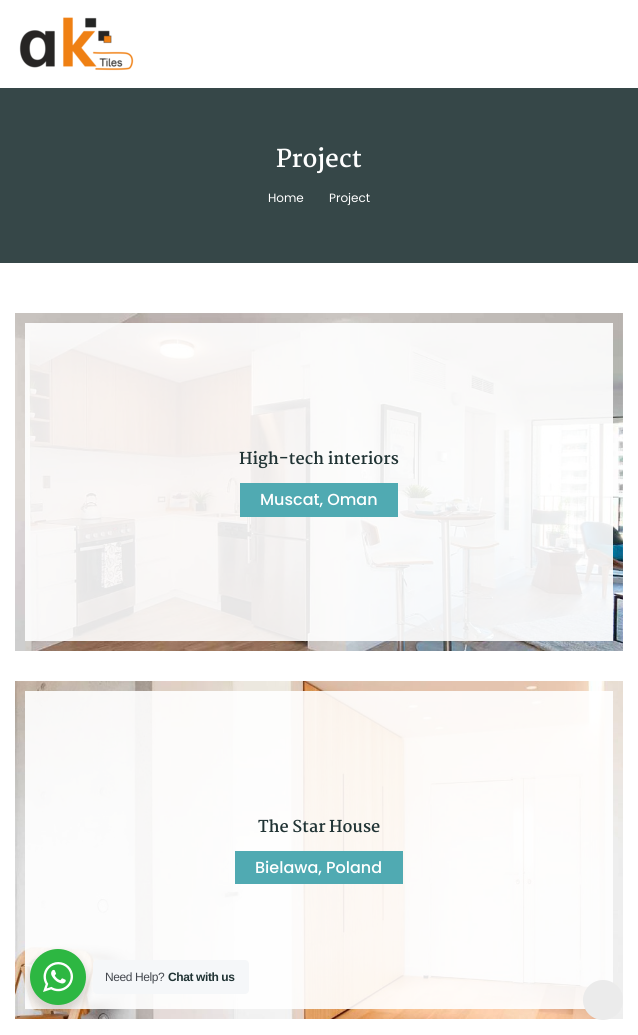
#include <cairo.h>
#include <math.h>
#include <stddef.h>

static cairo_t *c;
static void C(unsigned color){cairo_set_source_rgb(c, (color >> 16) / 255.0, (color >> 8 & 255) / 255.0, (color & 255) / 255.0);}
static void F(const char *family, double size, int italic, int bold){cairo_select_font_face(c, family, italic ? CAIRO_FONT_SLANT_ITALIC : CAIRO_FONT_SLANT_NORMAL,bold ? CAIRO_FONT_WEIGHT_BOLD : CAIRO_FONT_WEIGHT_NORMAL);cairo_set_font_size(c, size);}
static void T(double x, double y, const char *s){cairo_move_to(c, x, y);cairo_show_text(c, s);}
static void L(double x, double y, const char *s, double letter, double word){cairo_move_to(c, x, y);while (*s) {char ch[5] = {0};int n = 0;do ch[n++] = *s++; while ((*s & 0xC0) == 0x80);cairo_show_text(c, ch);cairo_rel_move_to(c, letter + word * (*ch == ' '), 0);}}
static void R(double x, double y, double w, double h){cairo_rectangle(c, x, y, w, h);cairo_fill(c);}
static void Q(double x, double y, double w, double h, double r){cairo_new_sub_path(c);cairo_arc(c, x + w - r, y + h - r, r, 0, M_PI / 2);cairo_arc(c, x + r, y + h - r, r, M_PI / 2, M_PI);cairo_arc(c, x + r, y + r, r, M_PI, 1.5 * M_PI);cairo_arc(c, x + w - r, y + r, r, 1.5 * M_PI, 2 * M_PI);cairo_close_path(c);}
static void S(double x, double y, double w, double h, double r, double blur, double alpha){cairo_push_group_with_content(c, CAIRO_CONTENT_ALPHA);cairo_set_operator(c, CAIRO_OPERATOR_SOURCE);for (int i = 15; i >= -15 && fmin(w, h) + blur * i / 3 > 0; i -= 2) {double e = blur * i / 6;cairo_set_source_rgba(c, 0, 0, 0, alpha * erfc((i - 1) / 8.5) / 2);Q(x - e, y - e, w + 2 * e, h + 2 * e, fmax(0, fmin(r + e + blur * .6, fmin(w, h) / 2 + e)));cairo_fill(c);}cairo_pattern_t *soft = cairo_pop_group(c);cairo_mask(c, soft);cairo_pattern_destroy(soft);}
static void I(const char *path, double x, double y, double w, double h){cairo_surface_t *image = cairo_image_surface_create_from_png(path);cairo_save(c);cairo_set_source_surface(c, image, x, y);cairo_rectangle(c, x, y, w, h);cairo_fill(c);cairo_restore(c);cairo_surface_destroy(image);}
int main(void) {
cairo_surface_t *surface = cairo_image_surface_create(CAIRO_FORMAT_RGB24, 638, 1035);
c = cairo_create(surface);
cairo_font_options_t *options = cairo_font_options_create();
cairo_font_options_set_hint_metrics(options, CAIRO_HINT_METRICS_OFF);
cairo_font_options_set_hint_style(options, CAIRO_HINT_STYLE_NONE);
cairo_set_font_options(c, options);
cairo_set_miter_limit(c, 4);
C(0xffffff);
cairo_paint(c);
I("1.png",19,17,115,54);
C(0x364748);
R(0,88,638,175);
F("Martel",24,0,1);
C(0xffffff);
T(276,167,"Project");
F("Poppins",12,0,0);
T(268,202,"Home");
T(329,202,"Project");
I("2.png",15,313,608,338);
F("Martel",16,0,1);
C(0x203334);
T(239,464,"High-tech interiors");
C(0x50aab2);
R(240,483,158,34);
F("Poppins Medium",16,0,0);
C(0xffffff);
T(260,505,"Muscat, Oman");
I("3.png",15,681,608,338);
F("Martel",16,0,1);
C(0x203334);
T(258,832,"The Star House");
C(0x50aab2);
R(235,851,168,33);
F("Poppins Medium",16,0,0);
C(0xffffff);
T(255,873,"Bielawa, Poland");
C(0xebebeb);
cairo_new_path(c);
cairo_arc(c,603,1000,20,0,2 * M_PI);
cairo_fill(c);
C(0x000000);
S(28,953,60,60,30,4,.14);
C(0x2db742);
cairo_arc(c,58,977,28,0,2 * M_PI);
cairo_fill(c);
I("4.png",43,962,30,30);
C(0xf5f7f9);
Q(93,960,156,34,4);
cairo_fill(c);
F("Liberation Sans",12,0,0);
C(0x43474e);
L(105,981,"Need Help?",-.4,0);
F("Liberation Sans",12,0,1);
C(0x203334);
L(168,981,"Chat with us",-.4,0);
cairo_surface_write_to_png(surface, "o.png");
cairo_font_options_destroy(options);
cairo_destroy(c);
cairo_surface_destroy(surface);
return 0;
}
